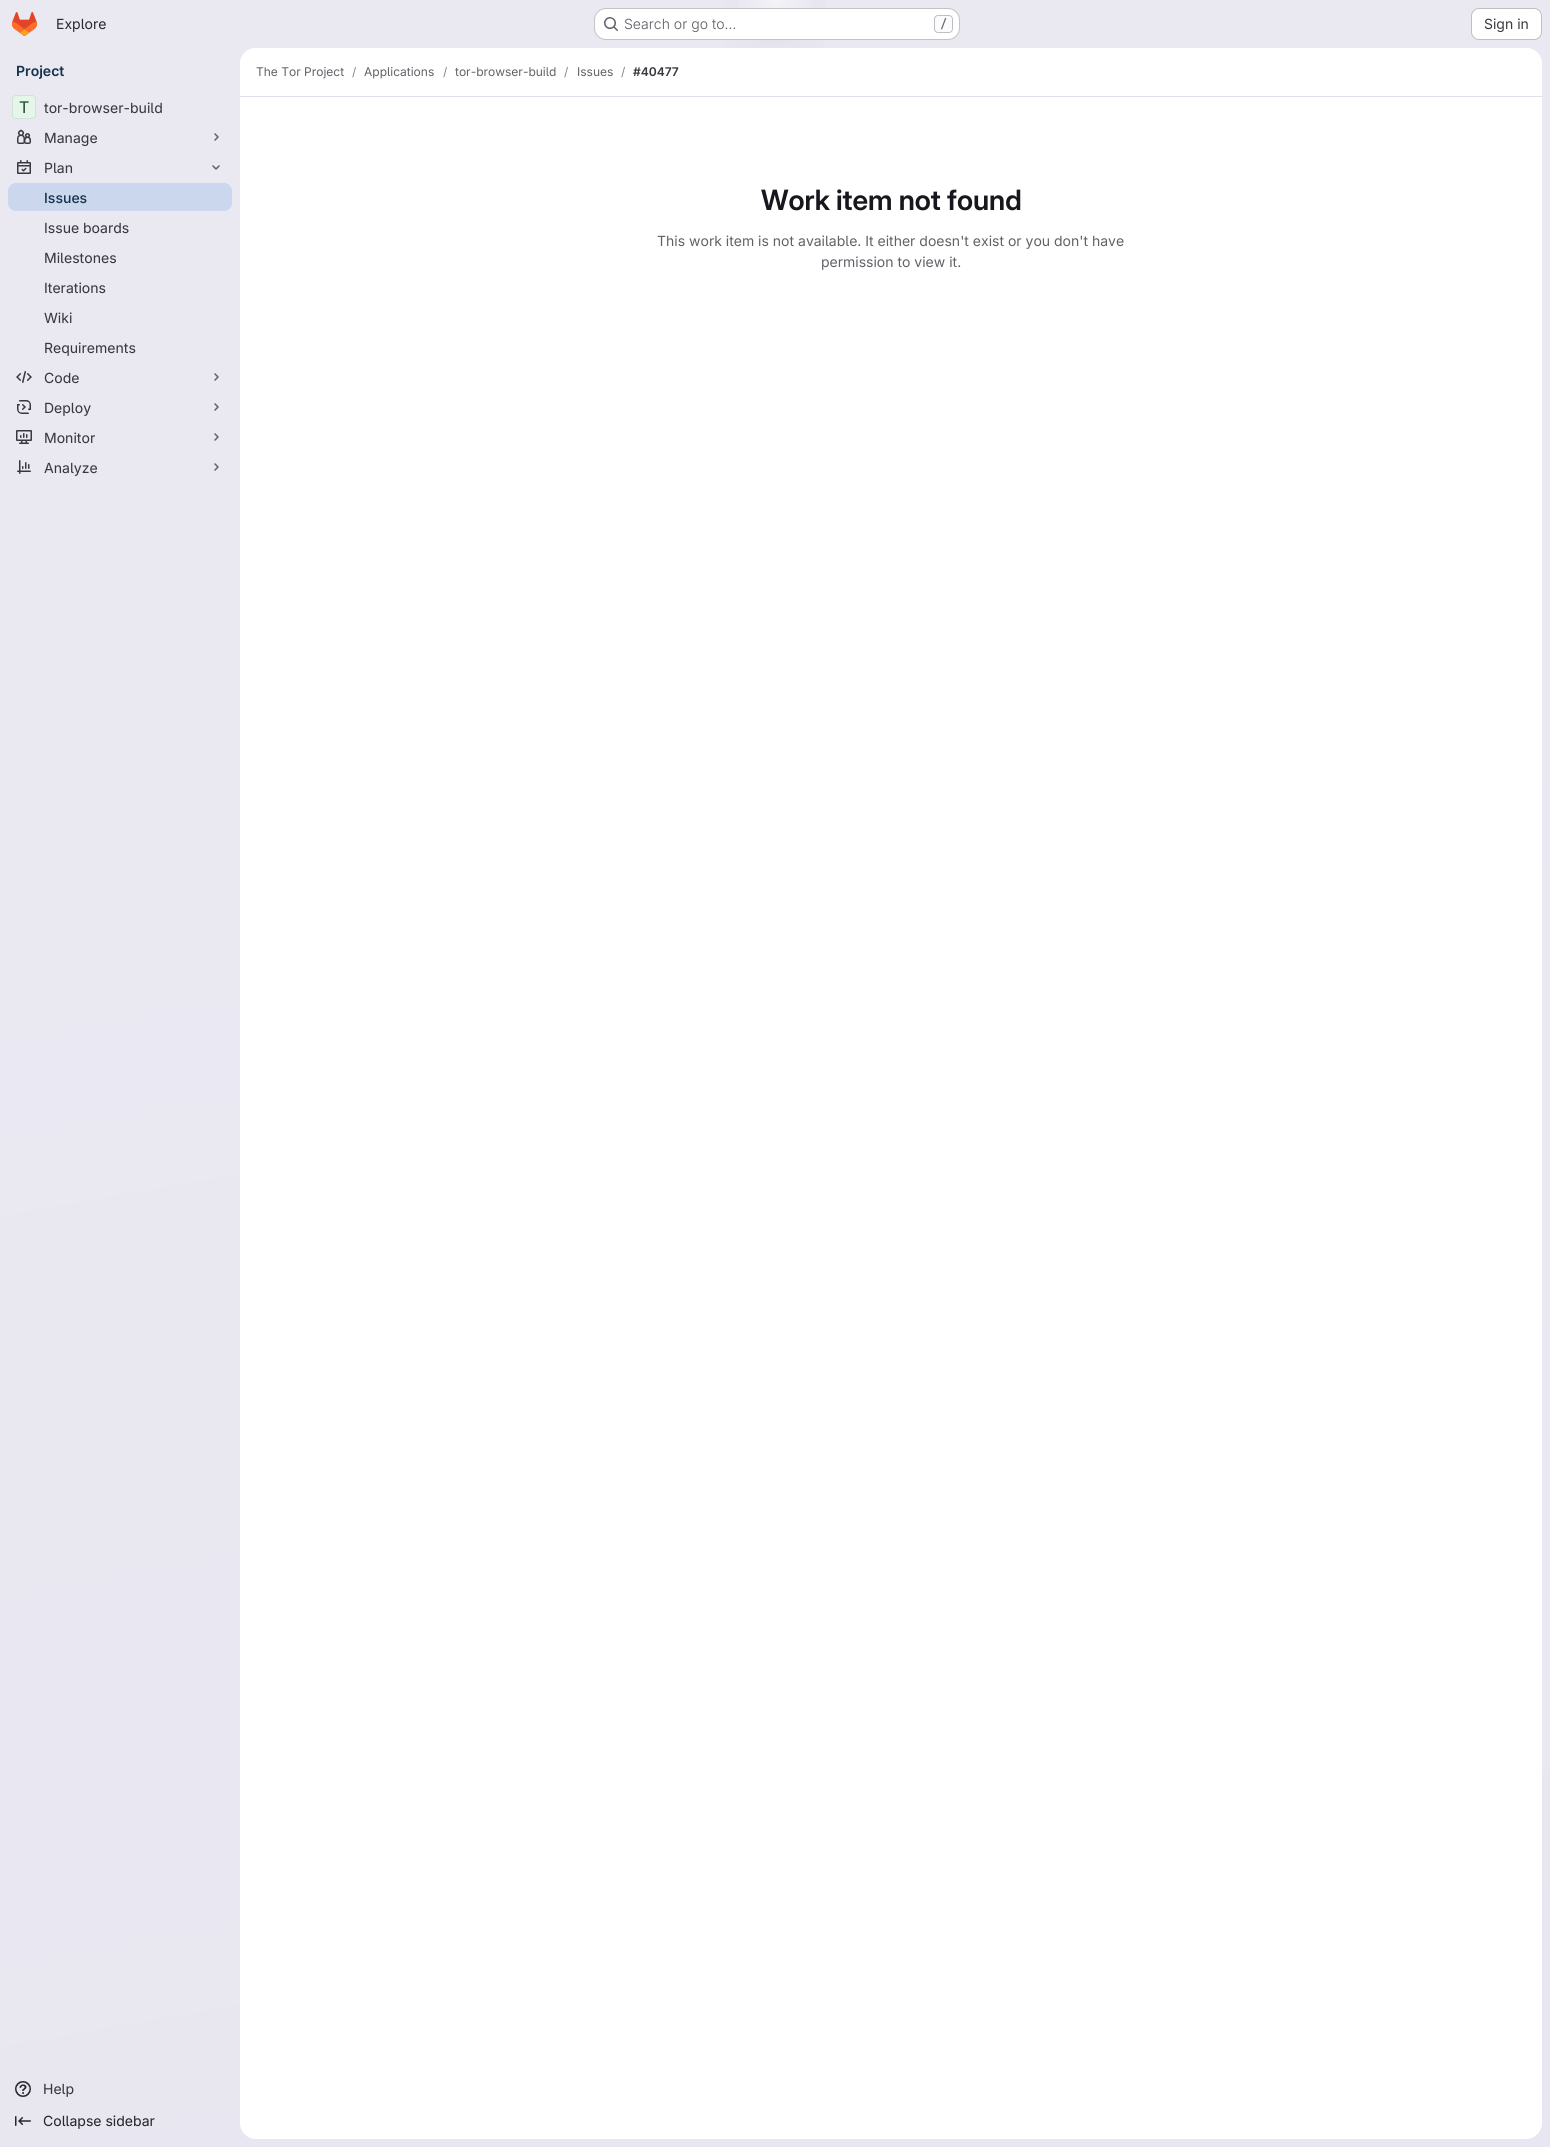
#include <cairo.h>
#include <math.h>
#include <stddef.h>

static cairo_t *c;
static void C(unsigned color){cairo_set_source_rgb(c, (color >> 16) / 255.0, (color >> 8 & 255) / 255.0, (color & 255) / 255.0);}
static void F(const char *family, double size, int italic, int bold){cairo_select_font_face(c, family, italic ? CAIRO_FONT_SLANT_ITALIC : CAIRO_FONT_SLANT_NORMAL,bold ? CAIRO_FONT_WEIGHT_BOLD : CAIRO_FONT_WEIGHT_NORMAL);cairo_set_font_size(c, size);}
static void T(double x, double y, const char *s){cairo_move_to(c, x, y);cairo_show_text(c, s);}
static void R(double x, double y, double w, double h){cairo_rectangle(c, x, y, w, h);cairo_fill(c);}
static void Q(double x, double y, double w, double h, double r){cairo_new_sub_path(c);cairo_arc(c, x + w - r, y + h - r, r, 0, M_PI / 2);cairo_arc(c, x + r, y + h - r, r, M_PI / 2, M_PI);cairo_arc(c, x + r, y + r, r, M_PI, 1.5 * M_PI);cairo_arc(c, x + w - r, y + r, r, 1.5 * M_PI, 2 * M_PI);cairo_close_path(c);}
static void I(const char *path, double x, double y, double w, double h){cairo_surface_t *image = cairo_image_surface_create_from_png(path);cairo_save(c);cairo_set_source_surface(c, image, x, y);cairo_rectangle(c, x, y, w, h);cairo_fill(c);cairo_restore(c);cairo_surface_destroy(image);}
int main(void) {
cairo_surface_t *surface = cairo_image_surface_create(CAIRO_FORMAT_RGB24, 1550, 2147);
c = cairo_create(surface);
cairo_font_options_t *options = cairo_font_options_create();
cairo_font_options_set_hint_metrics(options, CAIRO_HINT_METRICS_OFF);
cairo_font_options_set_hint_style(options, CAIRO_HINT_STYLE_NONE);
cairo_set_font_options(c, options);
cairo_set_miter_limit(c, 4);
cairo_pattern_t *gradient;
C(0xffffff);
cairo_paint(c);
gradient = cairo_pattern_create_linear(982,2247,568,-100);
cairo_pattern_add_color_stop_rgba(gradient,0,0.91,0.902,0.941,1);
cairo_pattern_add_color_stop_rgba(gradient,.7,0.918,0.914,0.949,1);
cairo_set_source(c,gradient);
cairo_pattern_destroy(gradient);
R(0,0,1550,2147);
gradient = cairo_pattern_create_radial(0,0,0,0,0,1);
cairo_pattern_set_matrix(gradient, &(cairo_matrix_t){1.0 / 775, 0, 0, 1.0 / 2147, -1.0 * 775 / 775, -1.0 * 0 / 2147});
cairo_pattern_add_color_stop_rgba(gradient,0,0.894,0.886,0.929,1);
cairo_pattern_add_color_stop_rgba(gradient,.09,0.894,0.886,0.929,0);
cairo_set_source(c,gradient);
cairo_pattern_destroy(gradient);
R(725,0,100,48);
gradient = cairo_pattern_create_radial(0,0,0,0,0,1);
cairo_pattern_set_matrix(gradient, &(cairo_matrix_t){1.0 / 775, 0, 0, 1.0 / 2147, -1.0 * 775 / 775, -1.0 * 0 / 2147});
cairo_pattern_add_color_stop_rgba(gradient,0,0.894,0.886,0.925,1);
cairo_pattern_add_color_stop_rgba(gradient,.06,0.894,0.886,0.925,0);
cairo_set_source(c,gradient);
cairo_pattern_destroy(gradient);
R(760,8,32,34);
gradient = cairo_pattern_create_radial(775,0,0,775,0,2283);
cairo_pattern_add_color_stop_rgba(gradient,0,1,1,1,.6);
cairo_pattern_add_color_stop_rgba(gradient,.02,1,1,1,0);
cairo_set_source(c,gradient);
cairo_pattern_destroy(gradient);
R(738,0,74,38);
I("1.png",12,12,25,24);
F("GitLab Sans",14,0,0);
C(0x28272d);
T(56,29,"Explore");
C(0xffffff);
Q(594,8,366,32,12);
cairo_fill(c);
Q(594.5,8.5,365,31,11.5);
cairo_set_source_rgba(c,0.02,0.02,0.024,0.24);
cairo_set_line_width(c,1);
cairo_stroke(c);
I("2.png",604,17,14,14);
F("GitLab Sans Light",14,0,0);
C(0x626168);
T(624,29,"Search or go to…");
C(0xfbfafd);
Q(934.5,15.5,18,17,3.5);
cairo_fill_preserve(c);
C(0xbfbfc3);
cairo_stroke(c);
F("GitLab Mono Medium",12,0,0);
C(0x626168);
T(940,28,"/");
C(0xffffff);
Q(1471.5,8.5,70,31,7.5);
cairo_fill_preserve(c);
C(0xbfbfc3);
cairo_stroke(c);
F("GitLab Sans",14,0,0);
C(0x3a383f);
T(1484,29,"Sign in");
F("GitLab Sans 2 SemiBold",14,0,0);
C(0x18334e);
T(16,76,"Project");
C(0xffffff);
Q(12,95,24,24,4);
cairo_fill(c);
cairo_set_source_rgba(c,0.569,0.831,0.659,0.24);
Q(12,95,24,24,4);
cairo_fill(c);
Q(12.5,95.5,23,23,3.5);
cairo_set_source_rgba(c,0.02,0.02,0.024,0.08);
cairo_stroke(c);
F("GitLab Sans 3",16,0,0);
C(0x225131);
T(19,113,"T");
F("GitLab Sans 2",14,0,0);
C(0x3a383f);
T(44,113,"tor-browser-build");
I("3.png",17,129,14,15);
T(44,143,"Manage");
cairo_new_path(c);
cairo_move_to(c,215,134);
cairo_line_to(c,218,137);
cairo_line_to(c,215,140);
C(0x626168);
cairo_set_line_width(c,1.5);
cairo_set_line_cap(c,CAIRO_LINE_CAP_ROUND);
cairo_set_line_join(c,CAIRO_LINE_JOIN_ROUND);
cairo_stroke(c);
I("4.png",17,160,14,14);
C(0x3a383f);
T(44,173,"Plan");
cairo_new_path(c);
cairo_move_to(c,219,166);
cairo_line_to(c,216,169);
cairo_line_to(c,213,166);
C(0x626168);
cairo_stroke(c);
C(0xcad7ec);
Q(8,183,224,28,8);
cairo_fill(c);
F("GitLab Sans Medium",14,0,0);
C(0x18334e);
T(44,203,"Issues");
F("GitLab Sans 2",14,0,0);
C(0x3a383f);
T(44,233,"Issue boards");
T(44,263,"Milestones");
T(44,293,"Iterations");
T(44,323,"Wiki");
T(44,353,"Requirements");
I("5.png",16,371,16,12);
T(44,383,"Code");
cairo_new_path(c);
cairo_move_to(c,215,374);
cairo_line_to(c,218,377);
cairo_line_to(c,215,380);
C(0x626168);
cairo_stroke(c);
I("6.png",17,400,14,14);
C(0x3a383f);
T(44,413,"Deploy");
cairo_new_path(c);
cairo_move_to(c,215,404);
cairo_line_to(c,218,407);
cairo_line_to(c,215,410);
C(0x626168);
cairo_stroke(c);
I("7.png",16,430,16,14);
C(0x3a383f);
T(44,443,"Monitor");
cairo_new_path(c);
cairo_move_to(c,215,434);
cairo_line_to(c,218,437);
cairo_line_to(c,215,440);
C(0x626168);
cairo_stroke(c);
I("8.png",17,460,14,14);
C(0x3a383f);
T(44,473,"Analyze");
cairo_new_path(c);
cairo_move_to(c,215,464);
cairo_line_to(c,218,467);
cairo_line_to(c,215,470);
C(0x626168);
cairo_stroke(c);
I("9.png",15,2081,16,16);
C(0x3a383f);
T(43,2094,"Help");
I("10.png",15,2116,16,10);
C(0x28272d);
T(43,2126,"Collapse sidebar");
C(0xffffff);
Q(240,48,1302,2091,16);
cairo_fill(c);
cairo_new_path(c);
cairo_move_to(c,256,48);
cairo_line_to(c,1526,48);
cairo_curve_to(c,1535,48,1542,55,1542,64);
cairo_line_to(c,1542,97);
cairo_line_to(c,240,97);
cairo_line_to(c,240,64);
cairo_curve_to(c,240,55,247,48,256,48);
cairo_close_path(c);
cairo_fill(c);
C(0xe1dfec);
R(240,96,1302,1);
F("GitLab Sans",12,0,0);
C(0x626168);
T(256,76,"The Tor Project");
C(0x89888d);
T(352,76,"/");
C(0x626168);
T(364,76,"Applications");
C(0x89888d);
T(443,76,"/");
C(0x626168);
T(455,76,"tor-browser-build");
C(0x89888d);
T(564,76,"/");
C(0x626168);
T(577,76,"Issues");
C(0x89888d);
T(621,76,"/");
F("GitLab Sans 2 SemiBold",12,0,0);
C(0x3a383f);
T(633,76,"#40477");
F("GitLab Sans SemiBold",28,0,0);
C(0x18171d);
T(761,210,"Work item not found");
F("GitLab Sans",14,0,0);
C(0x626168);
T(657,246,"This work item is not available. It either doesn't exist or you don't have");
T(821,267,"permission to view it.");
cairo_surface_write_to_png(surface, "o.png");
cairo_font_options_destroy(options);
cairo_destroy(c);
cairo_surface_destroy(surface);
return 0;
}
